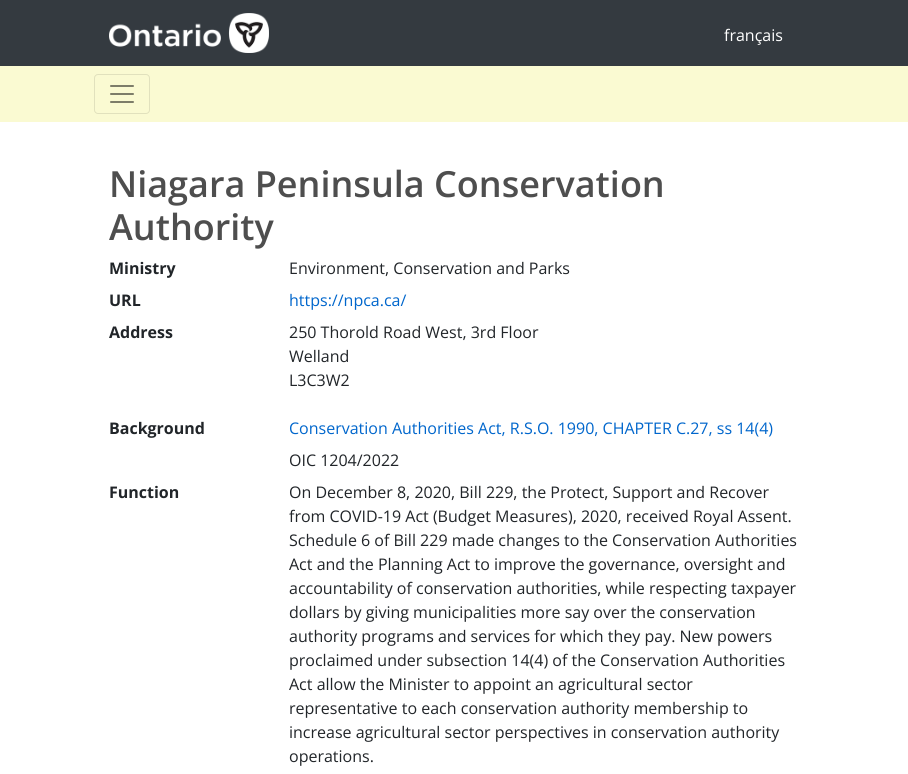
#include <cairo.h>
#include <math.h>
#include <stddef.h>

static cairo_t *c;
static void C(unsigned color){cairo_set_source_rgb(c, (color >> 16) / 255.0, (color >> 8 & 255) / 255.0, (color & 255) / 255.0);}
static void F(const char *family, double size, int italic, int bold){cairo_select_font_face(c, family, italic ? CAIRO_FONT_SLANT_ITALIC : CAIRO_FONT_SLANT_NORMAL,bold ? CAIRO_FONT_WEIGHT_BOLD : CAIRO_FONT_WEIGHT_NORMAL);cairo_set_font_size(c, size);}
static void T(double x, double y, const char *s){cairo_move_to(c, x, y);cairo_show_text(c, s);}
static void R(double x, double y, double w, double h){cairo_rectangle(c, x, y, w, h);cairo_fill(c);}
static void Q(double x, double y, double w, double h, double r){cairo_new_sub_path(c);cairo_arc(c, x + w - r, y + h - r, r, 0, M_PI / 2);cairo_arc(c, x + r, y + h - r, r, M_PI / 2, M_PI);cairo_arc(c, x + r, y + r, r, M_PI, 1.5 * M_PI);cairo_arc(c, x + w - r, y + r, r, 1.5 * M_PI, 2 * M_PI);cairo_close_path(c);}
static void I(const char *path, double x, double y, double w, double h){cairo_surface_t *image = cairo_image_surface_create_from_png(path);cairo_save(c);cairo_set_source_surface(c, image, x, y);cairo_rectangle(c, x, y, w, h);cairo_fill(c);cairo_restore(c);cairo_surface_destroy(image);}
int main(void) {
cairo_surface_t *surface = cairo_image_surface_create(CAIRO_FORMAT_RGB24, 908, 774);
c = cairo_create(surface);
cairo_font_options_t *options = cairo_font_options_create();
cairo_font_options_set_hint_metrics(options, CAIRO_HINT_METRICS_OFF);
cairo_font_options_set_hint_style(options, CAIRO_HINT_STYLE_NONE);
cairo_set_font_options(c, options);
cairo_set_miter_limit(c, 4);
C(0xffffff);
cairo_paint(c);
C(0x343a40);
R(0,0,908,66);
I("1.png",109,13,160,40);
F("Open Sans",16,0,0);
C(0xffffff);
T(724,41,"français");
C(0xfafad2);
R(0,66,908,56);
Q(94.5,74.5,55,39,3.5);
C(0xe1e1bd);
cairo_set_line_width(c,1);
cairo_stroke(c);
I("2.png",110,85,24,18);
F("Open Sans SemiBold",36,0,0);
C(0x4e4e4e);
T(109,197,"Niagara Peninsula Conservation");
T(109,240,"Authority");
F("Open Sans",16,0,1);
C(0x212529);
T(109,274,"Ministry");
F("Open Sans",16,0,0);
T(289,274,"Environment, Conservation and Parks");
F("Open Sans",16,0,1);
T(109,306,"URL");
F("Open Sans",16,0,0);
C(0x0066cc);
T(289,306,"https://npca.ca/");
F("Open Sans",16,0,1);
C(0x212529);
T(109,338,"Address");
F("Open Sans",16,0,0);
T(289,338,"250 Thorold Road West, 3rd Floor");
T(289,362,"Welland");
T(289,386,"L3C3W2");
F("Open Sans",16,0,1);
T(109,434,"Background");
F("Open Sans",16,0,0);
C(0x0066cc);
T(289,434,"Conservation Authorities Act, R.S.O. 1990, CHAPTER C.27, ss 14(4)");
C(0x212529);
T(289,466,"OIC 1204/2022");
F("Open Sans",16,0,1);
T(109,498,"Function");
F("Open Sans",16,0,0);
T(289,498,"On December 8, 2020, Bill 229, the Protect, Support and Recover");
T(289,522,"from COVID-19 Act (Budget Measures), 2020, received Royal Assent.");
T(289,546,"Schedule 6 of Bill 229 made changes to the Conservation Authorities");
T(289,570,"Act and the Planning Act to improve the governance, oversight and");
T(289,594,"accountability of conservation authorities, while respecting taxpayer");
T(289,618,"dollars by giving municipalities more say over the conservation");
T(289,642,"authority programs and services for which they pay. New powers");
T(289,666,"proclaimed under subsection 14(4) of the Conservation Authorities");
T(289,690,"Act allow the Minister to appoint an agricultural sector");
T(289,714,"representative to each conservation authority membership to");
T(289,738,"increase agricultural sector perspectives in conservation authority");
T(289,762,"operations.");
cairo_surface_write_to_png(surface, "o.png");
cairo_font_options_destroy(options);
cairo_destroy(c);
cairo_surface_destroy(surface);
return 0;
}
